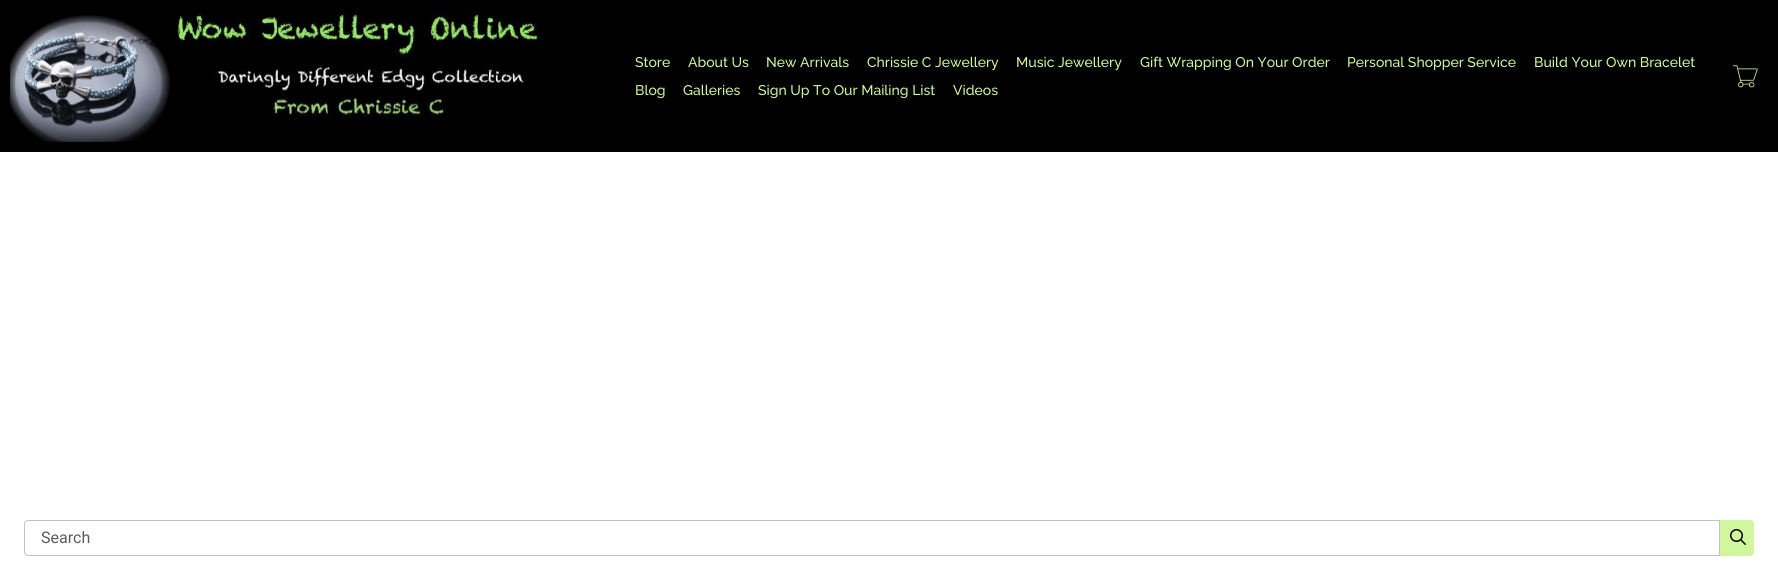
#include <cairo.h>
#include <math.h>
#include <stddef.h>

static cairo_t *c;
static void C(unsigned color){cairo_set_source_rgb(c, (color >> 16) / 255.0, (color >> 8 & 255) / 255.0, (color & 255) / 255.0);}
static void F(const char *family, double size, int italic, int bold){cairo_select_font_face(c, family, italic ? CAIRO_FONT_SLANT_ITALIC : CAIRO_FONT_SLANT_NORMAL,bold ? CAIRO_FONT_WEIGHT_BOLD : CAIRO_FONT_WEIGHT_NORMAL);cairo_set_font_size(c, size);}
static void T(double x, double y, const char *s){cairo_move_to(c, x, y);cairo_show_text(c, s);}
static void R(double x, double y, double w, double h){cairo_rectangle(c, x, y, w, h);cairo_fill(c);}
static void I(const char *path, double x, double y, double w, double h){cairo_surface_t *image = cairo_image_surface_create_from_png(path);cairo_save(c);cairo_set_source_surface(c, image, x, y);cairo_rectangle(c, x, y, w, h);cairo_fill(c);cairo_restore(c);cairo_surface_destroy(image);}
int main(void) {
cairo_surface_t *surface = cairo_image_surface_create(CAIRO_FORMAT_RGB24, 1778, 565);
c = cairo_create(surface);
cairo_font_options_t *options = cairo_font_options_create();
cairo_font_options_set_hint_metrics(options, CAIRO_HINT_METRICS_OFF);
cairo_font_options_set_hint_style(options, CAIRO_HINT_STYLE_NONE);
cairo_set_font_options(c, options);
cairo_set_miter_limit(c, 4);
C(0xffffff);
cairo_paint(c);
C(0x000000);
R(0,0,1778,152);
I("1.png",10,10,530,132);
F("Raleway Thin",14,0,0);
C(0xd0f79d);
T(635,67,"Store");
T(688,67,"About Us");
T(766,67,"New Arrivals");
T(867,67,"Chrissie C Jewellery");
T(1016,67,"Music Jewellery");
T(1140,67,"Gift Wrapping On Your Order");
T(1347,67,"Personal Shopper Service");
T(1534,67,"Build Your Own Bracelet");
T(635,95,"Blog");
T(683,95,"Galleries");
T(758,95,"Sign Up To Our Mailing List");
T(953,95,"Videos");
I("2.png",1733,65,25,23);
cairo_new_path(c);
cairo_move_to(c,28,520.5);
cairo_line_to(c,1719.5,520.5);
cairo_line_to(c,1719.5,555.5);
cairo_line_to(c,28,555.5);
cairo_curve_to(c,26,555.5,24.5,554,24.5,552);
cairo_line_to(c,24.5,524);
cairo_curve_to(c,24.5,522,26,520.5,28,520.5);
cairo_close_path(c);
C(0xc2c2c2);
cairo_set_line_width(c,1);
cairo_stroke(c);
F("Roboto",16,0,0);
C(0x5c5c5c);
T(41,543,"Search");
C(0xd0f79d);
cairo_new_path(c);
cairo_move_to(c,1720.5,520.5);
cairo_line_to(c,1750,520.5);
cairo_curve_to(c,1752,520.5,1753.5,522,1753.5,524);
cairo_line_to(c,1753.5,552);
cairo_curve_to(c,1753.5,554,1752,555.5,1750,555.5);
cairo_line_to(c,1720.5,555.5);
cairo_close_path(c);
cairo_fill_preserve(c);
cairo_stroke(c);
I("3.png",1730,529,16,16);
cairo_surface_write_to_png(surface, "o.png");
cairo_font_options_destroy(options);
cairo_destroy(c);
cairo_surface_destroy(surface);
return 0;
}
